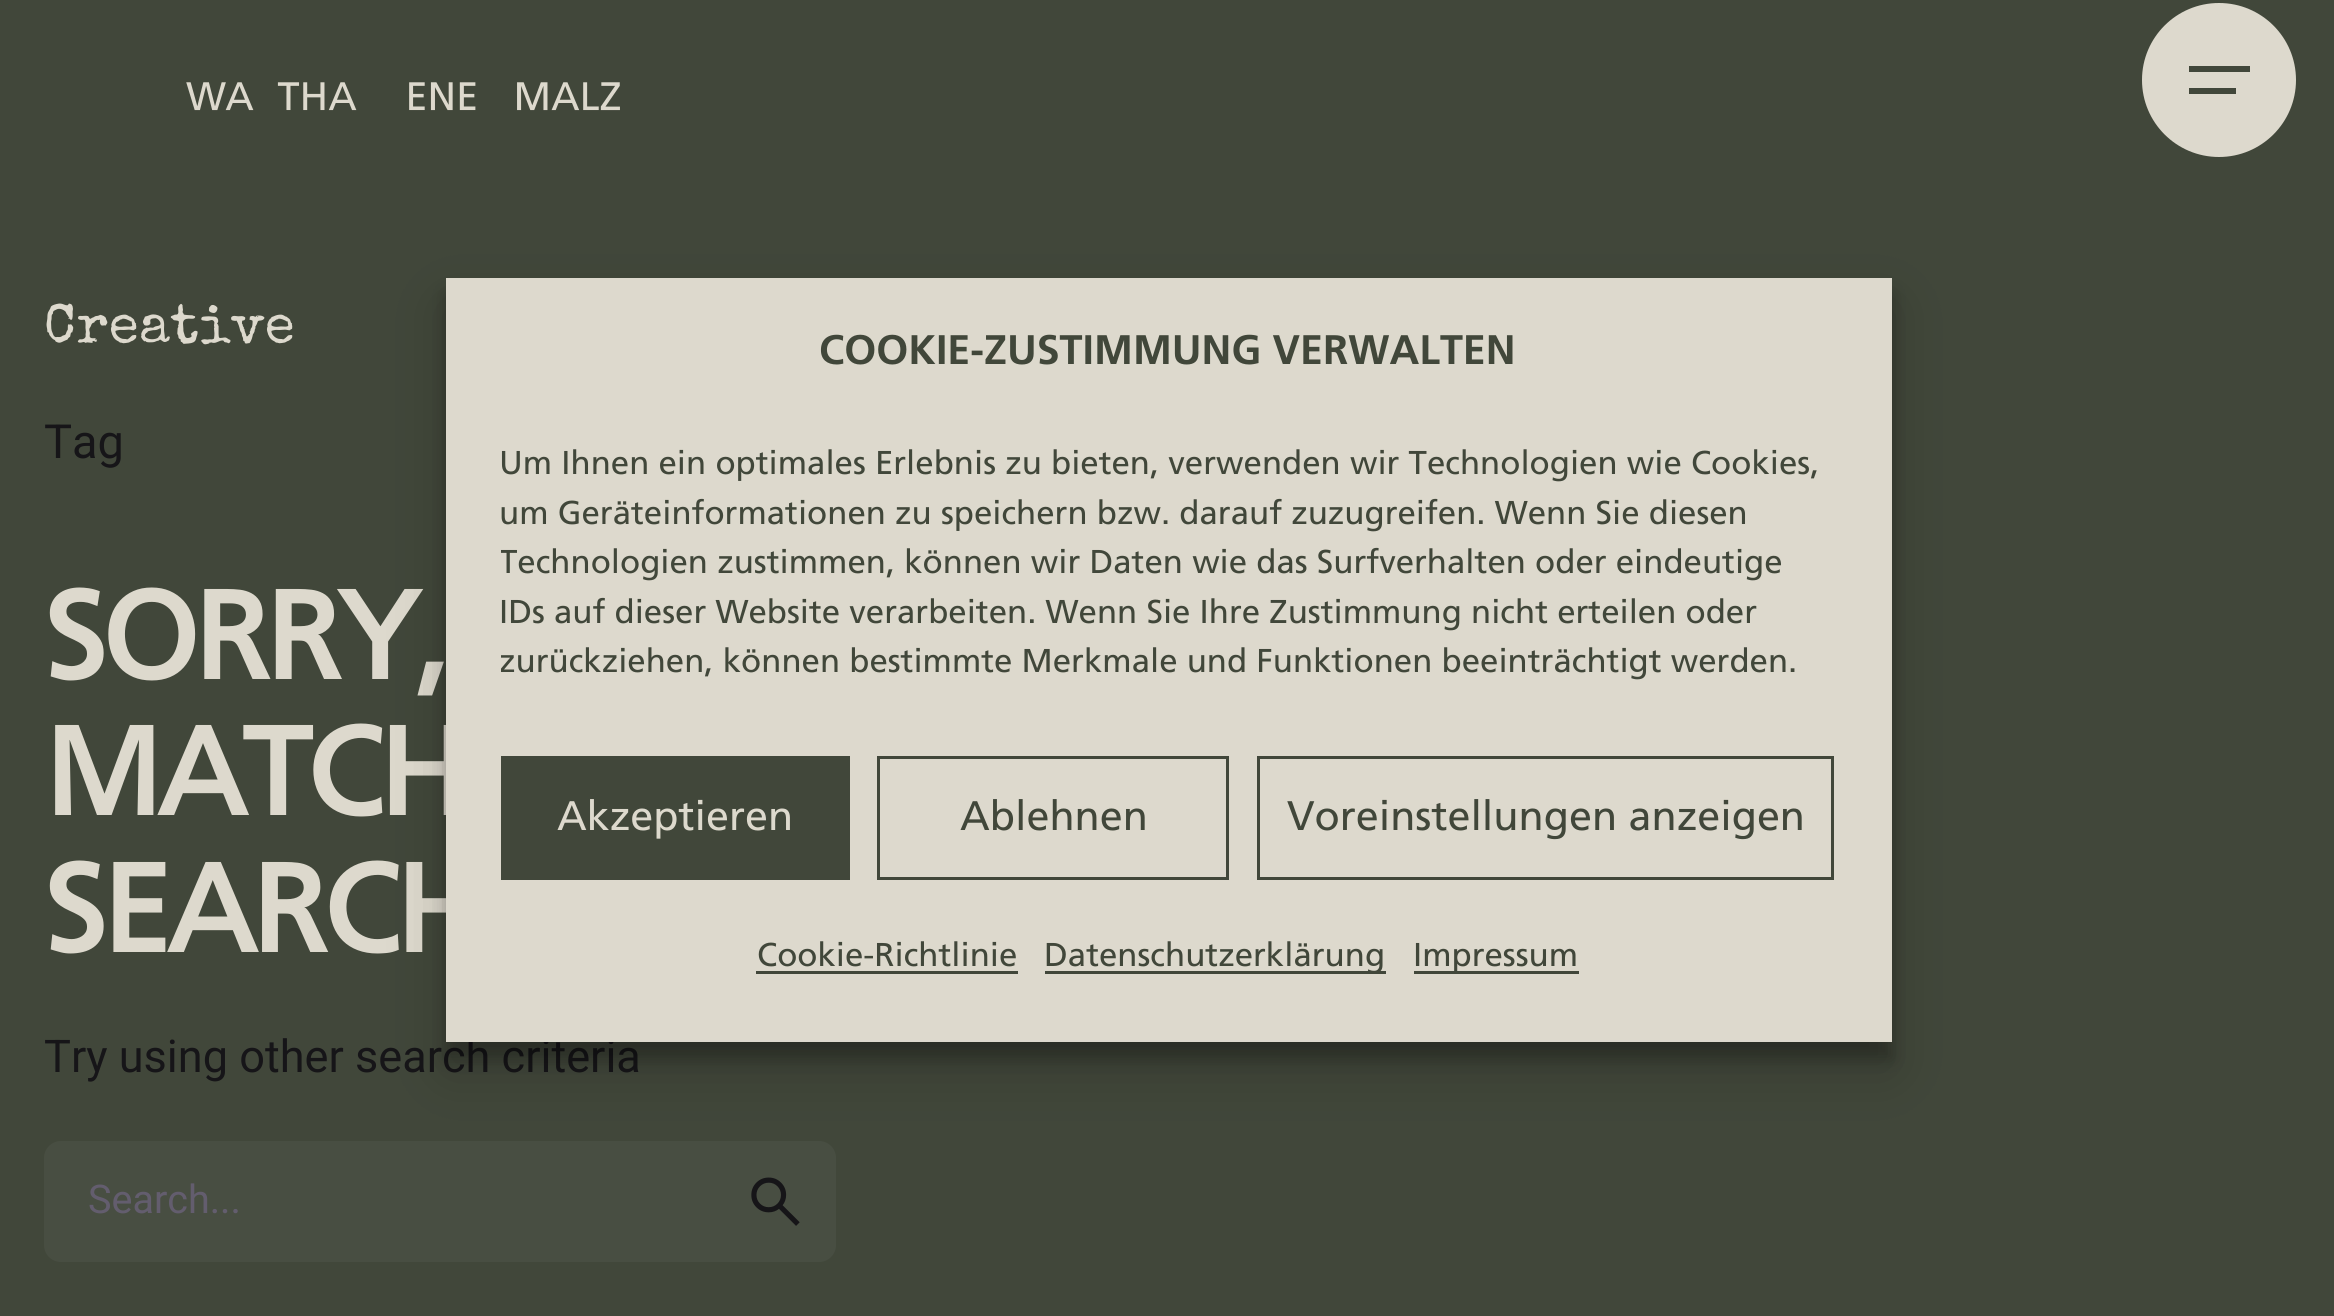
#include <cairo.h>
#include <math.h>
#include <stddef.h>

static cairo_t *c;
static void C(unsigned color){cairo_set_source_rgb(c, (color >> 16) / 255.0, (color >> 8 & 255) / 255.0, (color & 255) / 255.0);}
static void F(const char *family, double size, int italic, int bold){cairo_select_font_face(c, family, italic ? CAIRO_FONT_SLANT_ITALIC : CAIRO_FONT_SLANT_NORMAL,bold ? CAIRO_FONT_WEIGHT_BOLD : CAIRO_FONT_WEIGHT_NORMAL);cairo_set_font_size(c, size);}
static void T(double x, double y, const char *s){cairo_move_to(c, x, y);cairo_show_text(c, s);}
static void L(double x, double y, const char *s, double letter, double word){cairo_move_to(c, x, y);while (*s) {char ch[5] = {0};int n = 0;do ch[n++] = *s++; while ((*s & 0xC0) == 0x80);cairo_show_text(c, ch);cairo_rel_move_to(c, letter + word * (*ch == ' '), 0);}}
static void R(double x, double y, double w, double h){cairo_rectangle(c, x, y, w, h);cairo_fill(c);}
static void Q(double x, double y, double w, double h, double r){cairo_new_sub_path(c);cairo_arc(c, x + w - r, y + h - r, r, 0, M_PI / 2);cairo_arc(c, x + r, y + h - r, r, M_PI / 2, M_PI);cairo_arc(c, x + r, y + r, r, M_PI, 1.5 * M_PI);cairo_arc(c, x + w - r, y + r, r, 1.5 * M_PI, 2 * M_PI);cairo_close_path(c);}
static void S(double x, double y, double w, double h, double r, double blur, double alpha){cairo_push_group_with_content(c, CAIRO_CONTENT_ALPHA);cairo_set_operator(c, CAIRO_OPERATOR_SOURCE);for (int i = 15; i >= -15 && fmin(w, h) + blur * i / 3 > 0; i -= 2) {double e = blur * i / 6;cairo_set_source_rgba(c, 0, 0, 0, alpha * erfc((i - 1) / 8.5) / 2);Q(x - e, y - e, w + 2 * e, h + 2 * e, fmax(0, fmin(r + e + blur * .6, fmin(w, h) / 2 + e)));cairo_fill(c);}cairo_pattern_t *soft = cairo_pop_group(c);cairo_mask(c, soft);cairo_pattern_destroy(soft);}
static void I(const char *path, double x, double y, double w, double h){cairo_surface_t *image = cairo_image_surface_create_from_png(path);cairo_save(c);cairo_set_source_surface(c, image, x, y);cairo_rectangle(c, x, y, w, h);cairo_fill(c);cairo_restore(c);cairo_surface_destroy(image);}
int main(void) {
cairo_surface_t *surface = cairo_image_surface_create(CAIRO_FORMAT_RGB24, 2334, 1316);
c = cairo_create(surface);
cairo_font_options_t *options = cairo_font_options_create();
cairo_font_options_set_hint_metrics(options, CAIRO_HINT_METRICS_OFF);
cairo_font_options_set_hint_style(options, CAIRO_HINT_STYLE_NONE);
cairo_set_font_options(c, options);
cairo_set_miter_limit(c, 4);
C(0x41473a);
cairo_paint(c);
I("1.png",186,82,434,29);
C(0xddd9cd);
cairo_arc(c,2219,80,77,0,2 * M_PI);
cairo_fill(c);
C(0x41473a);
R(2189,66,61,6);
R(2189,88,47,6);
F("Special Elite",55,0,0);
C(0xddd9cd);
L(44,342,"Creative",.5,0);
F("Roboto",47,0,0);
C(0x161518);
T(44,458,"Tag");
F("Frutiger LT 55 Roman",124,0,1);
C(0xddd9cd);
L(44,679,"SORRY,",-4.25,0);
L(44,815,"MATCH",-4.25,0);
L(44,952,"SEARCH",-4.25,0);
F("Roboto",45.1,0,0);
C(0x161518);
T(44,1072,"Try using other search criteria");
C(0x484e42);
Q(44,1141,792,121,17);
cairo_fill(c);
F("Roboto",39.5,0,0);
C(0x635d6e);
T(88,1213,"Search...");
I("2.png",751,1177,49,49);
C(0x000000);
S(446,294,1446,765,0,8,.23);
S(446,305,1446,765,0,27.5,.19);
C(0xddd9cd);
R(446,278,1446,764);
F("Frutiger",41.25,0,1);
C(0x41473a);
T(819,364,"COOKIE-ZUSTIMMUNG VERWALTEN");
F("Frutiger LT 55 Roman",33,0,0);
T(499,474,"Um Ihnen ein optimales Erlebnis zu bieten, verwenden wir Technologien wie Cookies,");
T(499,524,"um Geräteinformationen zu speichern bzw. darauf zuzugreifen. Wenn Sie diesen");
cairo_save(c);
cairo_rectangle(c,501,440,1336,261);
cairo_clip(c);
T(499,573,"Technologien zustimmen, können wir Daten wie das Surfverhalten oder eindeutige");
cairo_restore(c);
T(499,623,"IDs auf dieser Website verarbeiten. Wenn Sie Ihre Zustimmung nicht erteilen oder");
cairo_save(c);
cairo_rectangle(c,501,440,1336,261);
cairo_clip(c);
T(499,672,"zurückziehen, können bestimmte Merkmale und Funktionen beeinträchtigt werden.");
cairo_restore(c);
R(501,756,349,124);
F("Frutiger LT 55 Roman",41.25,0,0);
C(0xddd9cd);
T(557,830,"Akzeptieren");
cairo_rectangle(c,878.5,757.5,349,121);
C(0x41473a);
cairo_set_line_width(c,3);
cairo_stroke(c);
T(960,830,"Ablehnen");
cairo_rectangle(c,1258.5,757.5,574,121);
cairo_stroke(c);
T(1287,830,"Voreinstellungen anzeigen");
F("Frutiger LT 55 Roman",33,0,0);
T(757,966,"Cookie-Richtlinie");
R(756,971,262,3);
R(1045,971,341,3);
T(1044,966,"Datenschutzerklärung");
R(1414,971,165,3);
T(1413,966,"Impressum");
cairo_surface_write_to_png(surface, "o.png");
cairo_font_options_destroy(options);
cairo_destroy(c);
cairo_surface_destroy(surface);
return 0;
}
